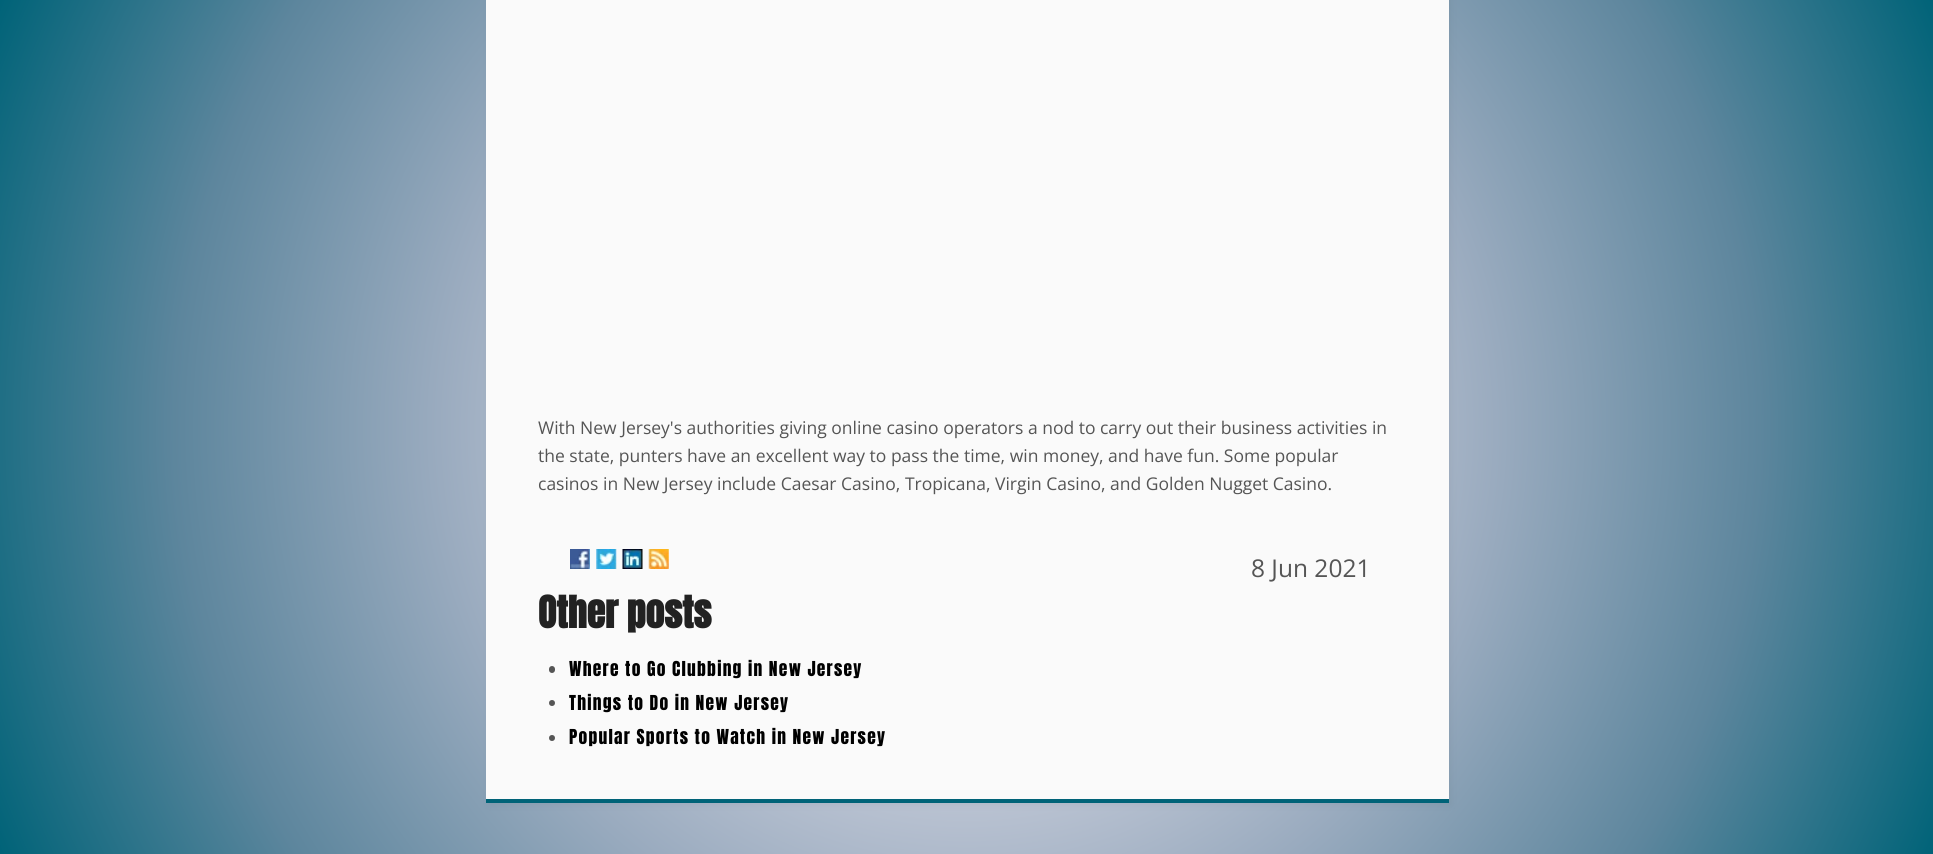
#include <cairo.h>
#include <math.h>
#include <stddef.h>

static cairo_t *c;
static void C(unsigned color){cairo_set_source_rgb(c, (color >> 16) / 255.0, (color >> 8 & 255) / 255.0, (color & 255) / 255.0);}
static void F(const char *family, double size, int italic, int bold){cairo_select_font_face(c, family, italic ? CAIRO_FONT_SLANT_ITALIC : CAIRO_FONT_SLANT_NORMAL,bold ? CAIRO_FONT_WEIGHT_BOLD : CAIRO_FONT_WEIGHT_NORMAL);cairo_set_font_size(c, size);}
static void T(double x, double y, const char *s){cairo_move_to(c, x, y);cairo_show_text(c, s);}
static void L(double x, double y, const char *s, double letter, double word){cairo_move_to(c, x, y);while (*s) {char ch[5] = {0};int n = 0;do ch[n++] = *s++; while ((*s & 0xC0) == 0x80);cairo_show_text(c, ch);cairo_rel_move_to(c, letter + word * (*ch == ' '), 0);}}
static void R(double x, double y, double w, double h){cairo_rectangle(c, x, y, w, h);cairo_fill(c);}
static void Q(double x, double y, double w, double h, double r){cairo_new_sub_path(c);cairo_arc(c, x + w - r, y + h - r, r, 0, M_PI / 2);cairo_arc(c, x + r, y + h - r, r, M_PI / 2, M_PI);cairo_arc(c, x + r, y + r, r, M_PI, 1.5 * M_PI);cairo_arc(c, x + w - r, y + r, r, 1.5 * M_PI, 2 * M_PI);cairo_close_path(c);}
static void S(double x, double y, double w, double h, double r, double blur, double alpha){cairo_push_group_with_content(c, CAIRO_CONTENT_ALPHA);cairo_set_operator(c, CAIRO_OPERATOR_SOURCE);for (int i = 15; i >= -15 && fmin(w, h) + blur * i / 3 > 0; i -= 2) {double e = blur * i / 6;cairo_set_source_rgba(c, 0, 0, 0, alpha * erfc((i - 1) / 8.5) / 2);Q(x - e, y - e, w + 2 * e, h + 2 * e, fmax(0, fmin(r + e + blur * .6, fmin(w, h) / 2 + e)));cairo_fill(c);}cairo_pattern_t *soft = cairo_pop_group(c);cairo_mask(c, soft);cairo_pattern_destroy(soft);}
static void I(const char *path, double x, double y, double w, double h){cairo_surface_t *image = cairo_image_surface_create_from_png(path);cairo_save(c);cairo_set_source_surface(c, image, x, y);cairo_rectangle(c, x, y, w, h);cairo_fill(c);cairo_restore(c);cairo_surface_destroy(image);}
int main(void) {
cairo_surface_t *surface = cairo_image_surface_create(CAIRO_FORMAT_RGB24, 1933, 854);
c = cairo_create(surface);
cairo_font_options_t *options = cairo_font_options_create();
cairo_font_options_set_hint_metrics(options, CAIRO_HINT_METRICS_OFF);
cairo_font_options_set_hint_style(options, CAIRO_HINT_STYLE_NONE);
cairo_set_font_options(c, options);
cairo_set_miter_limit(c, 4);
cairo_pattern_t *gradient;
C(0xffffff);
cairo_paint(c);
gradient = cairo_pattern_create_radial(967,428,0,967,428,1057);
cairo_pattern_add_color_stop_rgba(gradient,0,1,1,1,1);
cairo_pattern_add_color_stop_rgba(gradient,.25,0.816,0.827,0.875,1);
cairo_pattern_add_color_stop_rgba(gradient,.5,0.604,0.671,0.749,1);
cairo_pattern_add_color_stop_rgba(gradient,.75,0.365,0.525,0.616,1);
cairo_pattern_add_color_stop_rgba(gradient,1,0,0.388,0.471,1);
cairo_set_source(c,gradient);
cairo_pattern_destroy(gradient);
R(0,0,1933,854);
C(0x000000);
S(489,-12,962,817,0,4,.05);
C(0xfafafa);
R(486,0,963,799);
C(0x006378);
R(486,799,963,4);
F("Open Sans",17.5,0,0);
C(0x555555);
T(538,434,"With New Jersey's authorities giving online casino operators a nod to carry out their business activities in");
T(538,462,"the state, punters have an excellent way to pass the time, win money, and have fun. Some popular");
T(538,490,"casinos in New Jersey include Caesar Casino, Tropicana, Virgin Casino, and Golden Nugget Casino.");
I("1.png",570,549,20,20);
I("2.png",596,549,21,20);
I("3.png",622,549,21,20);
I("4.png",648,549,21,20);
F("Open Sans",24.5,0,0);
T(1251,577,"8 Jun 2021");
F("Anton",37.5,0,1);
C(0x222222);
T(538,628,"Other posts");
C(0x555555);
Q(549,666,6,7,3);
cairo_fill(c);
F("Anton",17.5,0,0);
C(0x000000);
L(569,676,"Where to Go Clubbing in New Jersey",1.25,0);
C(0x555555);
cairo_new_path(c);
cairo_arc(c,552,703,3,0,2 * M_PI);
cairo_fill(c);
C(0x000000);
L(569,710,"Things to Do in New Jersey",1.25,0);
C(0x555555);
cairo_new_path(c);
cairo_arc(c,552,738,3,0,2 * M_PI);
cairo_fill(c);
C(0x000000);
L(569,744,"Popular Sports to Watch in New Jersey",1.25,0);
cairo_surface_write_to_png(surface, "o.png");
cairo_font_options_destroy(options);
cairo_destroy(c);
cairo_surface_destroy(surface);
return 0;
}
